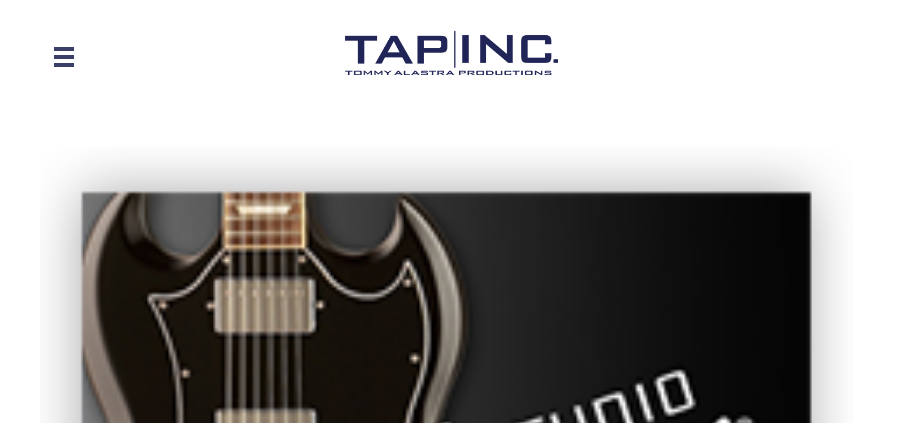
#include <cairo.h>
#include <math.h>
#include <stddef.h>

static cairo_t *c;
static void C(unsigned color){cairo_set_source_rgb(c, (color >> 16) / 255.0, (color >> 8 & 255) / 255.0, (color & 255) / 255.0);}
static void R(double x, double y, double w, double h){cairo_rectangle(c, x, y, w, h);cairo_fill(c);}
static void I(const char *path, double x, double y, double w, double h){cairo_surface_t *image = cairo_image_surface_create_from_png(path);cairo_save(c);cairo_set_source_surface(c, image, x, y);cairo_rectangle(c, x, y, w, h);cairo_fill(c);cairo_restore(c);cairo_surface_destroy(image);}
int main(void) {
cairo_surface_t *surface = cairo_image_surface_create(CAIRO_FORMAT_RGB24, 903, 423);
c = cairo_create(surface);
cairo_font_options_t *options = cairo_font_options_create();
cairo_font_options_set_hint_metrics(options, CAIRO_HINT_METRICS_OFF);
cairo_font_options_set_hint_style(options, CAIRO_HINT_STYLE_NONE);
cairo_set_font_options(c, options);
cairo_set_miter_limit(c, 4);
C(0xffffff);
cairo_paint(c);
C(0x3a406a);
R(54,47,20,4);
R(54,55,20,4);
R(54,63,20,4);
I("1.png",345,30,213,45);
I("2.png",40,147,813,276);
cairo_surface_write_to_png(surface, "o.png");
cairo_font_options_destroy(options);
cairo_destroy(c);
cairo_surface_destroy(surface);
return 0;
}
